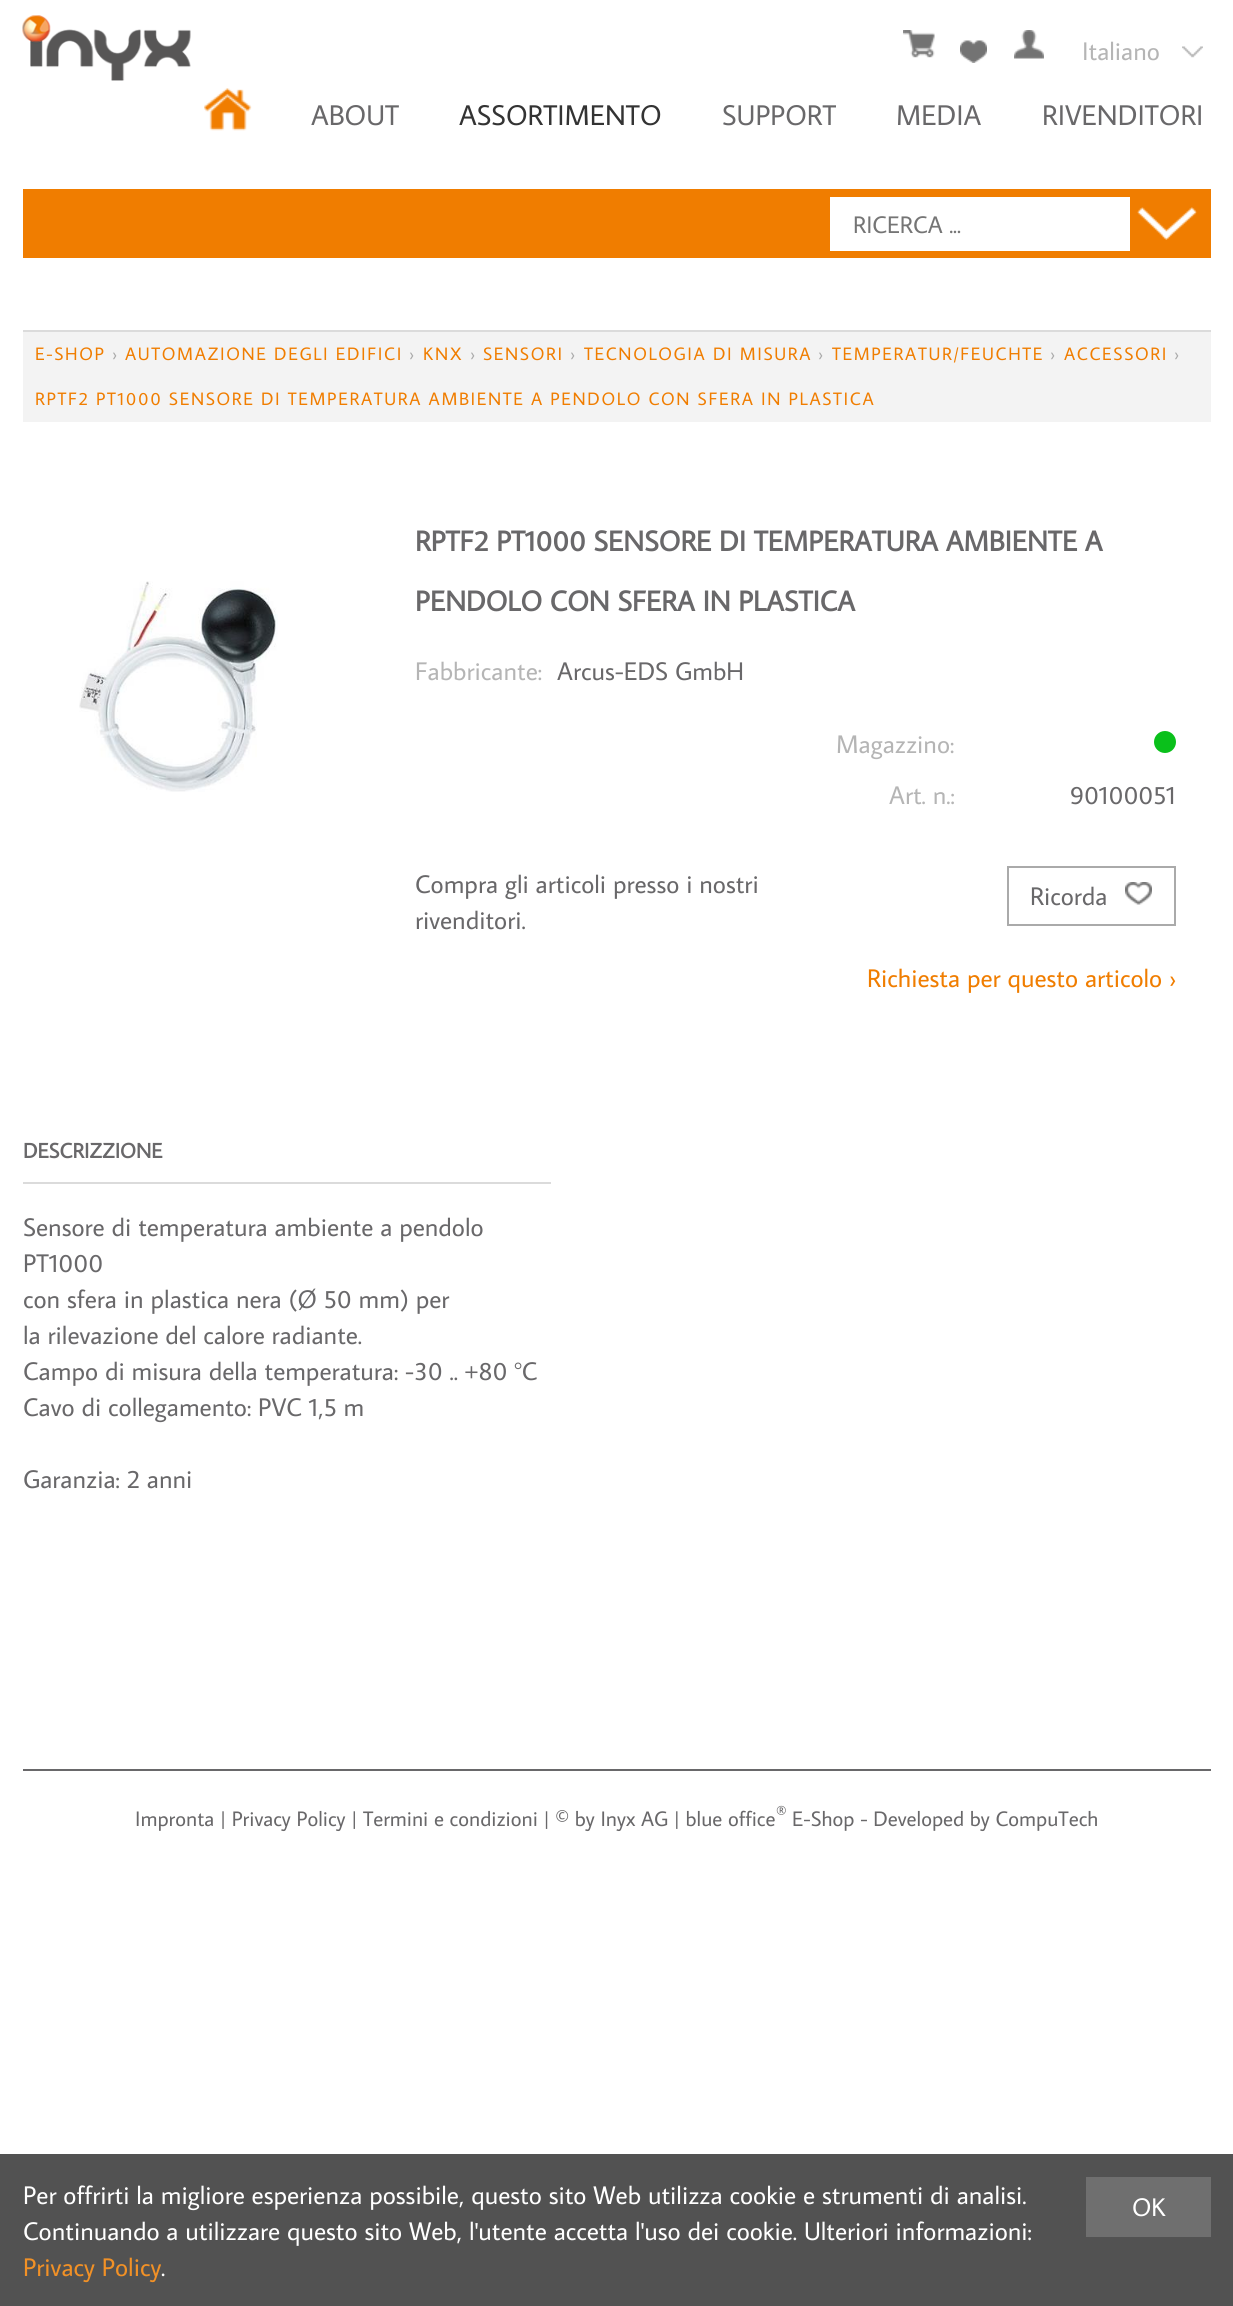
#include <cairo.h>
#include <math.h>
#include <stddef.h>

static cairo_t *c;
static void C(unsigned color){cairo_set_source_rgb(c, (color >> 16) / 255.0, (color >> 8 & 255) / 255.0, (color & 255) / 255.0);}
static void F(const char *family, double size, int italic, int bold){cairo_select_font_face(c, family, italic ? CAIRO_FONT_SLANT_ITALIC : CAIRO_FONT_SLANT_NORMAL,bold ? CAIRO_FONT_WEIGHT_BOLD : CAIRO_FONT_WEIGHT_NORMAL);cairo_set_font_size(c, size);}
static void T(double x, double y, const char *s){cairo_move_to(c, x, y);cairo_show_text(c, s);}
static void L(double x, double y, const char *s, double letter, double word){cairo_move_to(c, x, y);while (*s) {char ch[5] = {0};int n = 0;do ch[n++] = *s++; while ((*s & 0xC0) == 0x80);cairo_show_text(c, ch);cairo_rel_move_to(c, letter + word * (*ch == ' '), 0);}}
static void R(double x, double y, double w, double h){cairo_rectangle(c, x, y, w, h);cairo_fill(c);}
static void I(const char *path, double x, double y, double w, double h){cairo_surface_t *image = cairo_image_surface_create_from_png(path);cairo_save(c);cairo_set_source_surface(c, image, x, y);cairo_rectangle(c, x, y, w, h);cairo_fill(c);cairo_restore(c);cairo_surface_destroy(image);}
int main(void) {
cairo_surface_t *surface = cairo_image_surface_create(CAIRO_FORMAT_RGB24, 1233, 2306);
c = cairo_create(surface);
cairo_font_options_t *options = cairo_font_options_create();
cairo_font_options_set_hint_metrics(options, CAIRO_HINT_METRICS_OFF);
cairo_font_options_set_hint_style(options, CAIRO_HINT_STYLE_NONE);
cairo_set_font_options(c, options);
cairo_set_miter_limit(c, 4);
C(0xffffff);
cairo_paint(c);
I("1.png",22,15,169,66);
I("2.png",903,30,32,28);
I("3.png",960,40,27,23);
I("4.png",1014,30,30,29);
F("Average Sans",25.5,0,0);
C(0xb5b5b5);
T(1082,60,"Italiano");
I("5.png",1182,46,21,12);
I("6.png",204,88,48,43);
F("Average Sans",28.5,0,0);
C(0x69686a);
T(311,125,"ABOUT");
C(0x333333);
T(459,125,"ASSORTIMENTO");
C(0x69686a);
T(722,125,"SUPPORT");
T(896,125,"MEDIA");
T(1042,125,"RIVENDITORI");
C(0xf07d00);
R(23,189,1188,69);
C(0xffffff);
R(830,197,300,54);
F("Average Sans",24,0,0);
C(0x757575);
T(853,233,"RICERCA ...");
I("7.png",1137,207,60,33);
C(0xf3f3f3);
R(23,332,1188,90);
C(0xdbdbdb);
R(23,330,1188,2);
F("Average Sans",18,0,0);
C(0xf07d00);
L(35,360,"E-SHOP",1.62,0);
C(0xaaaaaa);
L(112,360,"›",1.62,0);
C(0xf07d00);
L(125,360,"AUTOMAZIONE DEGLI EDIFICI",1.62,0);
C(0xaaaaaa);
L(409,360,"›",1.62,0);
C(0xf07d00);
L(423,360,"KNX",1.62,0);
C(0xaaaaaa);
L(470,360,"›",1.62,0);
C(0xf07d00);
L(483,360,"SENSORI",1.62,0);
C(0xaaaaaa);
L(570,360,"›",1.62,0);
C(0xf07d00);
L(584,360,"TECNOLOGIA DI MISURA",1.62,0);
C(0xaaaaaa);
L(818,360,"›",1.62,0);
C(0xf07d00);
L(832,360,"TEMPERATUR/FEUCHTE",1.62,0);
C(0xaaaaaa);
L(1050,360,"›",1.62,0);
C(0xf07d00);
L(1064,360,"ACCESSORI",1.62,0);
C(0xaaaaaa);
L(1174,360,"›",1.62,0);
C(0xf07d00);
L(35,405,"RPTF2 PT1000 SENSORE DI TEMPERATURA AMBIENTE A PENDOLO CON SFERA IN PLASTICA",1.62,0);
I("8.png",79,581,199,211);
F("Average Sans",28.5,0,1);
C(0x69686a);
T(415,551,"RPTF2 PT1000 SENSORE DI TEMPERATURA AMBIENTE A");
T(415,611,"PENDOLO CON SFERA IN PLASTICA");
F("Average Sans",25.5,0,0);
C(0xb5b5b5);
T(415,680,"Fabbricante:");
C(0x69686a);
T(557,680,"Arcus-EDS GmbH");
C(0xb5b5b5);
T(836,753,"Magazzino:");
C(0x0ac01b);
cairo_new_path(c);
cairo_arc(c,1165,742,11,0,2 * M_PI);
cairo_fill(c);
C(0xb5b5b5);
T(889,804,"Art. n.:");
C(0x69686a);
T(1070,804,"90100051");
T(415,893,"Compra gli articoli presso i nostri");
T(415,929,"rivenditori.");
cairo_rectangle(c,1008,867,167,58);
C(0xaaaaaa);
cairo_stroke(c);
C(0x69686a);
T(1030,905,"Ricorda");
I("9.png",1125,882,27,23);
C(0xf07d00);
T(867,987,"Richiesta per questo articolo ›");
C(0xdbdbdb);
R(23,1182,528,2);
F("Average Sans",21,0,1);
C(0x69686a);
T(23,1158,"DESCRIZZIONE");
F("Average Sans",25.5,0,0);
T(23,1236,"Sensore di temperatura ambiente a pendolo");
T(23,1272,"PT1000");
T(23,1308,"con sfera in plastica nera (Ø 50 mm) per");
T(23,1344,"la rilevazione del calore radiante.");
T(23,1380,"Campo di misura della temperatura: -30 .. +80 °C");
T(23,1416,"Cavo di collegamento: PVC 1,5 m");
T(23,1488,"Garanzia: 2 anni");
R(23,1769,1188,2);
F("Average Sans",21,0,0);
T(135,1826,"Impronta | Privacy Policy | Termini e condizioni | © by Inyx AG | blue office");
F("Average Sans",16,0,0);
T(776,1818,"®");
F("Average Sans",21,0,0);
T(792,1826,"E-Shop - Developed by CompuTech");
C(0x525252);
R(0,2154,1233,152);
F("Average Sans",25.5,0,0);
C(0xffffff);
T(23,2204,"Per offrirti la migliore esperienza possibile, questo sito Web utilizza cookie e strumenti di analisi.");
C(0x6f6f6f);
R(1086,2177,125,60);
C(0xffffff);
T(1132,2216,"OK");
T(23,2240,"Continuando a utilizzare questo sito Web, l'utente accetta l'uso dei cookie. Ulteriori informazioni:");
C(0xf29126);
T(23,2276,"Privacy Policy");
C(0xffffff);
T(161,2276,".");
cairo_surface_write_to_png(surface, "o.png");
cairo_font_options_destroy(options);
cairo_destroy(c);
cairo_surface_destroy(surface);
return 0;
}
